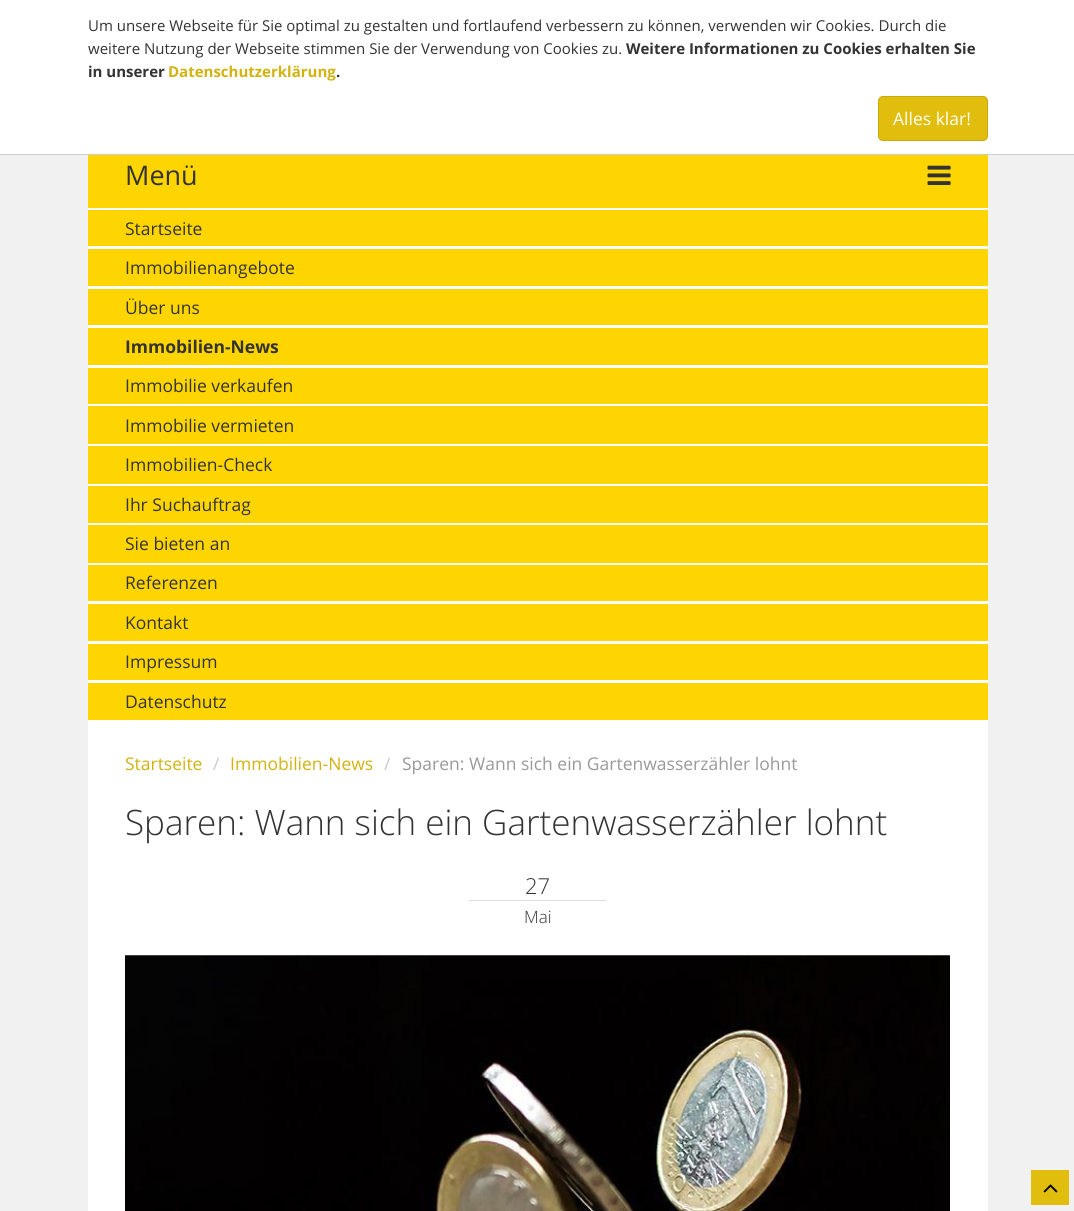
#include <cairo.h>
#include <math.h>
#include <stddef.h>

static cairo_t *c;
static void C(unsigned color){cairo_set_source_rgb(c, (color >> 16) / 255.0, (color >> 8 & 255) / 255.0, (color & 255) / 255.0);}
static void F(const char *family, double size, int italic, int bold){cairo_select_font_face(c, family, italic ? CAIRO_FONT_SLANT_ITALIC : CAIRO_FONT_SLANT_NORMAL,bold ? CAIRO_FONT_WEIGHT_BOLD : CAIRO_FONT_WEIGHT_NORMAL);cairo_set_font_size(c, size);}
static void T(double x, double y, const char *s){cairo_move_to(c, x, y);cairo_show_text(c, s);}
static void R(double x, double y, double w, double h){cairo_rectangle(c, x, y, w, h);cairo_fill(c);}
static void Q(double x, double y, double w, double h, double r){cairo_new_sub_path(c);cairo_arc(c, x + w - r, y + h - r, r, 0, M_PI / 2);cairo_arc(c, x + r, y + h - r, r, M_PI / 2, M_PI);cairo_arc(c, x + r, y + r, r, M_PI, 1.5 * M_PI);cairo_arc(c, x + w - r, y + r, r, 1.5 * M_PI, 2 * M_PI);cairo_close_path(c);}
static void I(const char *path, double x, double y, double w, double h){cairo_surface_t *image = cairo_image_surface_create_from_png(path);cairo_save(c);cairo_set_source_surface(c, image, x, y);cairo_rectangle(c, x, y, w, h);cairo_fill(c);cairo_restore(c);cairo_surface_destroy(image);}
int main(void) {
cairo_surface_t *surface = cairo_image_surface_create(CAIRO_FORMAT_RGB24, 1074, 1211);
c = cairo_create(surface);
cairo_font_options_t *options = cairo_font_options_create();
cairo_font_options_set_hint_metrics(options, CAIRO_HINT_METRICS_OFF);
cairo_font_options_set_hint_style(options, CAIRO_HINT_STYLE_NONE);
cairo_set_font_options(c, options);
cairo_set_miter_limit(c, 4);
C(0xf1f1f1);
cairo_paint(c);
C(0xffffff);
R(0,0,1074,154);
C(0xcccccc);
R(0,154,1074,1);
F("Open Sans",15,0,0);
C(0x333333);
T(88,31,"Um unsere Webseite für Sie optimal zu gestalten und fortlaufend verbessern zu können, verwenden wir Cookies. Durch die");
T(88,54,"weitere Nutzung der Webseite stimmen Sie der Verwendung von Cookies zu.");
F("Open Sans",15,0,1);
T(626,54,"Weitere Informationen zu Cookies erhalten Sie");
T(88,77,"in unserer");
C(0xd3b210);
T(168,77,"Datenschutzerklärung");
C(0x333333);
T(336,77,".");
C(0xe1bd0d);
Q(878.5,96.5,109,44,4.5);
cairo_fill_preserve(c);
C(0xc9a90c);
cairo_set_line_width(c,1);
cairo_stroke(c);
F("Open Sans",17.5,0,0);
C(0xffffff);
T(893,125,"Alles klar!");
R(88,208,900,1003);
C(0xffd500);
R(88,155,900,53);
F("Open Sans",27,0,0);
C(0x333333);
T(125,185,"Menü");
I("1.png",927,165,24,20);
C(0xffd500);
R(88,210,900,36);
F("Open Sans",17.5,0,0);
C(0x333333);
T(125,235,"Startseite");
C(0xffd500);
R(88,249,900,37);
C(0x333333);
T(125,274,"Immobilienangebote");
C(0xffd500);
R(88,289,900,36);
C(0x333333);
T(125,314,"Über uns");
C(0xffd500);
R(88,328,900,37);
F("Open Sans",17.5,0,1);
C(0x333333);
T(125,353,"Immobilien-News");
C(0xffd500);
R(88,368,900,36);
F("Open Sans",17.5,0,0);
C(0x333333);
T(125,392,"Immobilie verkaufen");
C(0xffd500);
R(88,406,900,38);
C(0x333333);
T(125,432,"Immobilie vermieten");
C(0xffd500);
R(88,446,900,38);
C(0x333333);
T(125,471,"Immobilien-Check");
C(0xffd500);
R(88,486,900,37);
C(0x333333);
T(125,511,"Ihr Suchauftrag");
C(0xffd500);
R(88,525,900,38);
C(0x333333);
T(125,550,"Sie bieten an");
C(0xffd500);
R(88,565,900,36);
C(0x333333);
T(125,589,"Referenzen");
C(0xffd500);
R(88,604,900,37);
C(0x333333);
T(125,629,"Kontakt");
C(0xffd500);
R(88,644,900,36);
C(0x333333);
T(125,668,"Impressum");
C(0xffd500);
R(88,683,900,37);
C(0x333333);
T(125,708,"Datenschutz");
C(0xd3b210);
T(125,770,"Startseite");
C(0xcccccc);
T(213,770,"/");
C(0xd3b210);
T(230,770,"Immobilien-News");
C(0xcccccc);
T(384,770,"/");
C(0x999999);
T(402,770,"Sparen: Wann sich ein Gartenwasserzähler lohnt");
F("Open Sans Light",35,0,0);
C(0x333333);
T(125,835,"Sparen: Wann sich ein Gartenwasserzähler lohnt");
F("Open Sans Light",22,0,0);
T(525,894,"27");
C(0xdddddd);
R(469,900,137,1);
F("Open Sans Light",17,0,0);
C(0x333333);
T(524,923,"Mai");
I("2.png",125,955,825,256);
C(0xe1bd0d);
R(1031,1170,38,35);
I("3.png",1043,1184,15,9);
cairo_surface_write_to_png(surface, "o.png");
cairo_font_options_destroy(options);
cairo_destroy(c);
cairo_surface_destroy(surface);
return 0;
}
